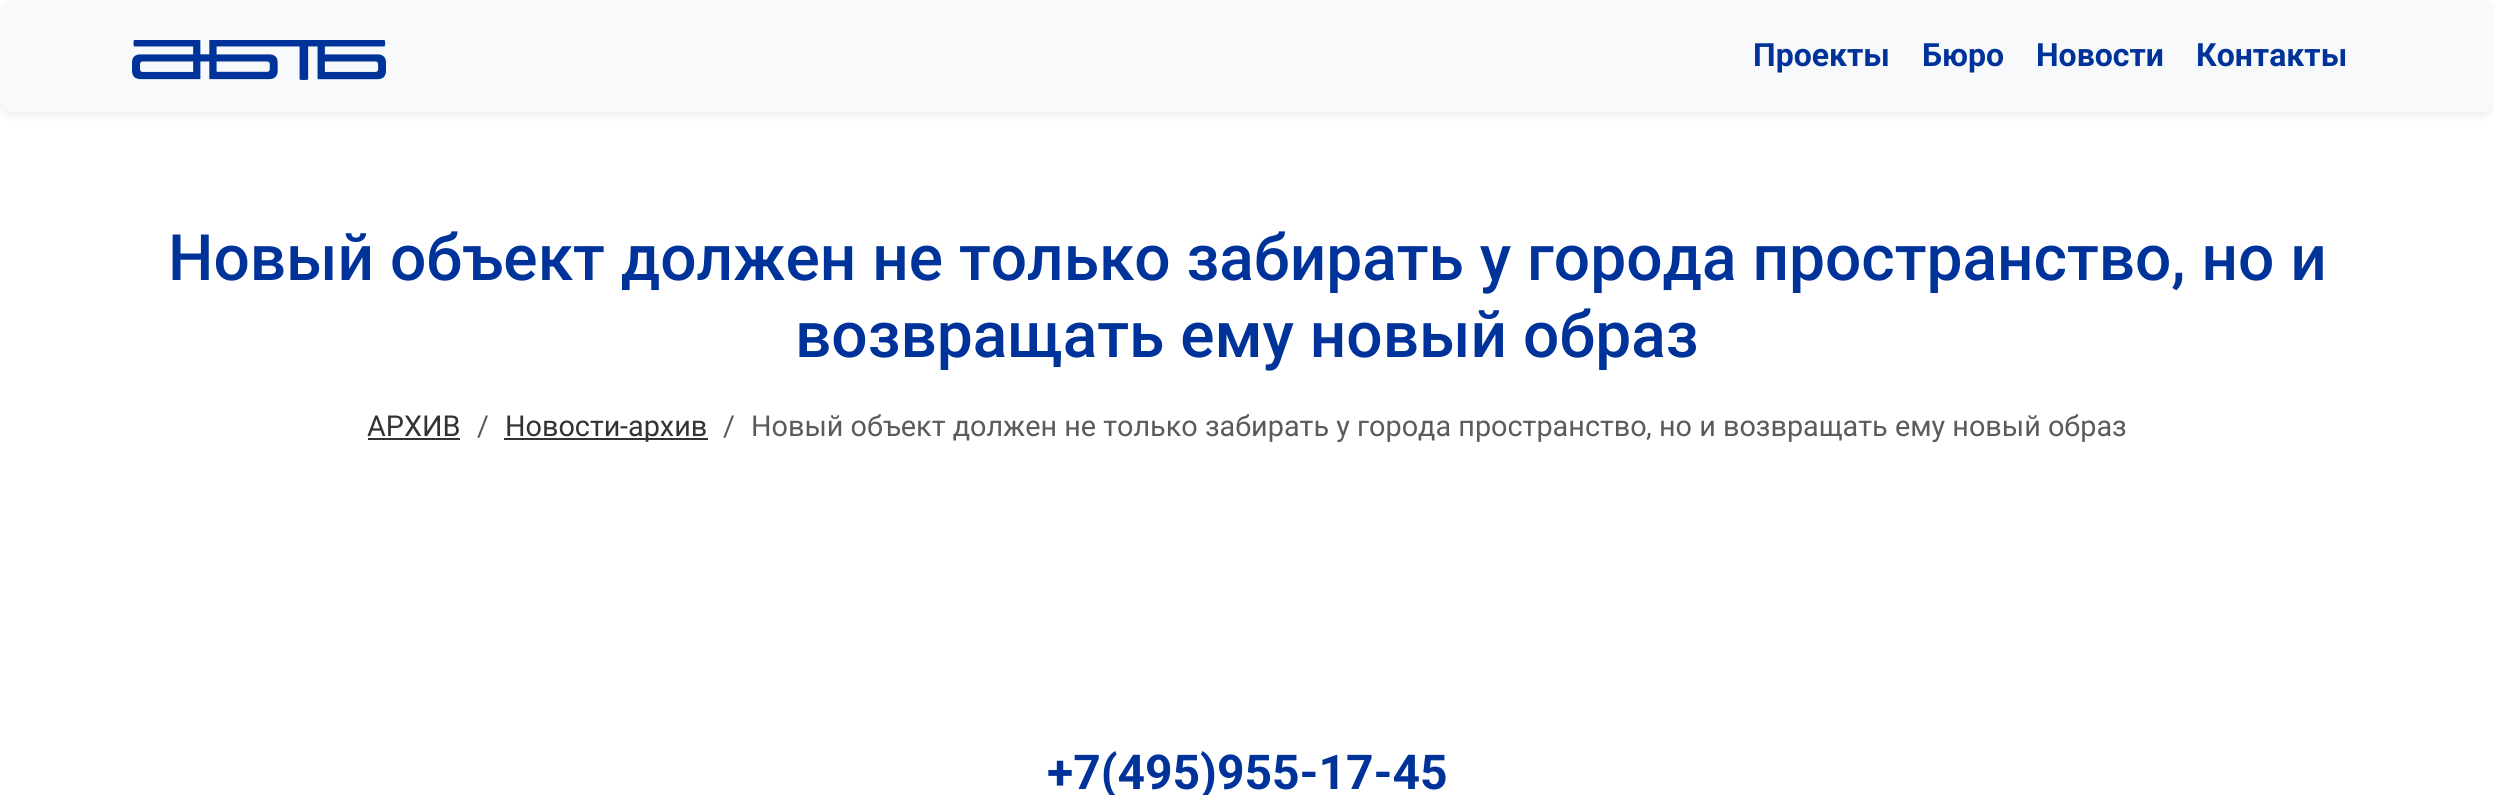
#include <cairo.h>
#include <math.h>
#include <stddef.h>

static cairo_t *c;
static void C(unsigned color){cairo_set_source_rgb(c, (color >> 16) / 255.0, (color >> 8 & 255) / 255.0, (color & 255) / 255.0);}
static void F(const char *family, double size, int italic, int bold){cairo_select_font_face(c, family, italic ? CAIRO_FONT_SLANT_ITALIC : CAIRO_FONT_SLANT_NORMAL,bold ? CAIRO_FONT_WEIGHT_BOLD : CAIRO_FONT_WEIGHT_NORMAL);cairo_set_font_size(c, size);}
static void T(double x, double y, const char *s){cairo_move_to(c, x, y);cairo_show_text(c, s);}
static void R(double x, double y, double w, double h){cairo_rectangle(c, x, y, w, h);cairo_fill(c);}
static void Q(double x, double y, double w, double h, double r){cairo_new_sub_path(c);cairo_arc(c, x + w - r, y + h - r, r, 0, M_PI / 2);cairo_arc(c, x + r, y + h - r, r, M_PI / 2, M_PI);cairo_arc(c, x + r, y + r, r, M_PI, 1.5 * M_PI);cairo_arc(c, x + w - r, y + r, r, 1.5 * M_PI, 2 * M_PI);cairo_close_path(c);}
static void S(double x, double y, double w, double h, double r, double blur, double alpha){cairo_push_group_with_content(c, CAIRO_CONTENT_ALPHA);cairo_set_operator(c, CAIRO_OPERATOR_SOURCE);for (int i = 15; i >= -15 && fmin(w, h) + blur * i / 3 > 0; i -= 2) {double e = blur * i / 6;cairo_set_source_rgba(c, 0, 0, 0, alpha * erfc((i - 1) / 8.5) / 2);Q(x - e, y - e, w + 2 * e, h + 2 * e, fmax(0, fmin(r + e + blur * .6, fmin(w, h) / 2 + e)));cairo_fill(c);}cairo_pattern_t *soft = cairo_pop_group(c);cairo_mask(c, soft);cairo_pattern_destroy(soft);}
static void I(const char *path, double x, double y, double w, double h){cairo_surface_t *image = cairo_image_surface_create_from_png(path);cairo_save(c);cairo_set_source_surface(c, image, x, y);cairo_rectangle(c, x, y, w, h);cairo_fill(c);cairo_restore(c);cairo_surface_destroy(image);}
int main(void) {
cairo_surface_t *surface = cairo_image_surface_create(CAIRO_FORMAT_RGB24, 2494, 795);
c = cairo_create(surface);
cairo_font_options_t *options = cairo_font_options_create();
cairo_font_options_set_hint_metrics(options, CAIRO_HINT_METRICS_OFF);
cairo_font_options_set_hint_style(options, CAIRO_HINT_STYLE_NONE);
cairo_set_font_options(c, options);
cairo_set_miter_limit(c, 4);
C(0xffffff);
cairo_paint(c);
C(0x000000);
S(0,4,2494,112,12,4,.07);
C(0xf8f9fa);
Q(0,0,2494,112,12);
cairo_fill(c);
I("1.png",132,40,254,40);
F("Roboto",32,0,1);
C(0x003399);
T(1753,66,"Проекты");
T(1922,66,"Бюро");
T(2036,66,"Новости");
T(2196,66,"Контакты");
F("Roboto Medium",64,0,0);
T(168,280,"Новый объект должен не только забирать у города пространство, но и");
T(795,357,"возвращать ему новый образ");
F("Roboto",28.8,0,0);
C(0x333333);
T(367,436,"АРХИВ");
R(368,438,92,2);
F("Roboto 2",28.8,0,0);
C(0x595c5f);
T(477,436,"/");
F("Roboto",28.8,0,0);
C(0x333333);
T(505,436,"Новости");
F("Roboto 2",28.8,0,0);
T(620,436,"-");
R(504,438,204,2);
F("Roboto",28.8,0,0);
T(628,436,"архив");
F("Roboto 2",28.8,0,0);
C(0x595c5f);
T(723,436,"/");
F("Roboto",28.8,0,0);
T(751,436,"Новый объект должен не только забирать у города пространство");
F("Roboto 2",28.8,0,0);
T(1646,436,",");
F("Roboto",28.8,0,0);
T(1659,436,"но и возвращать ему новый образ");
F("Roboto",48,0,1);
C(0x003399);
T(1047,789,"+7(495)955-17-45");
cairo_surface_write_to_png(surface, "o.png");
cairo_font_options_destroy(options);
cairo_destroy(c);
cairo_surface_destroy(surface);
return 0;
}
